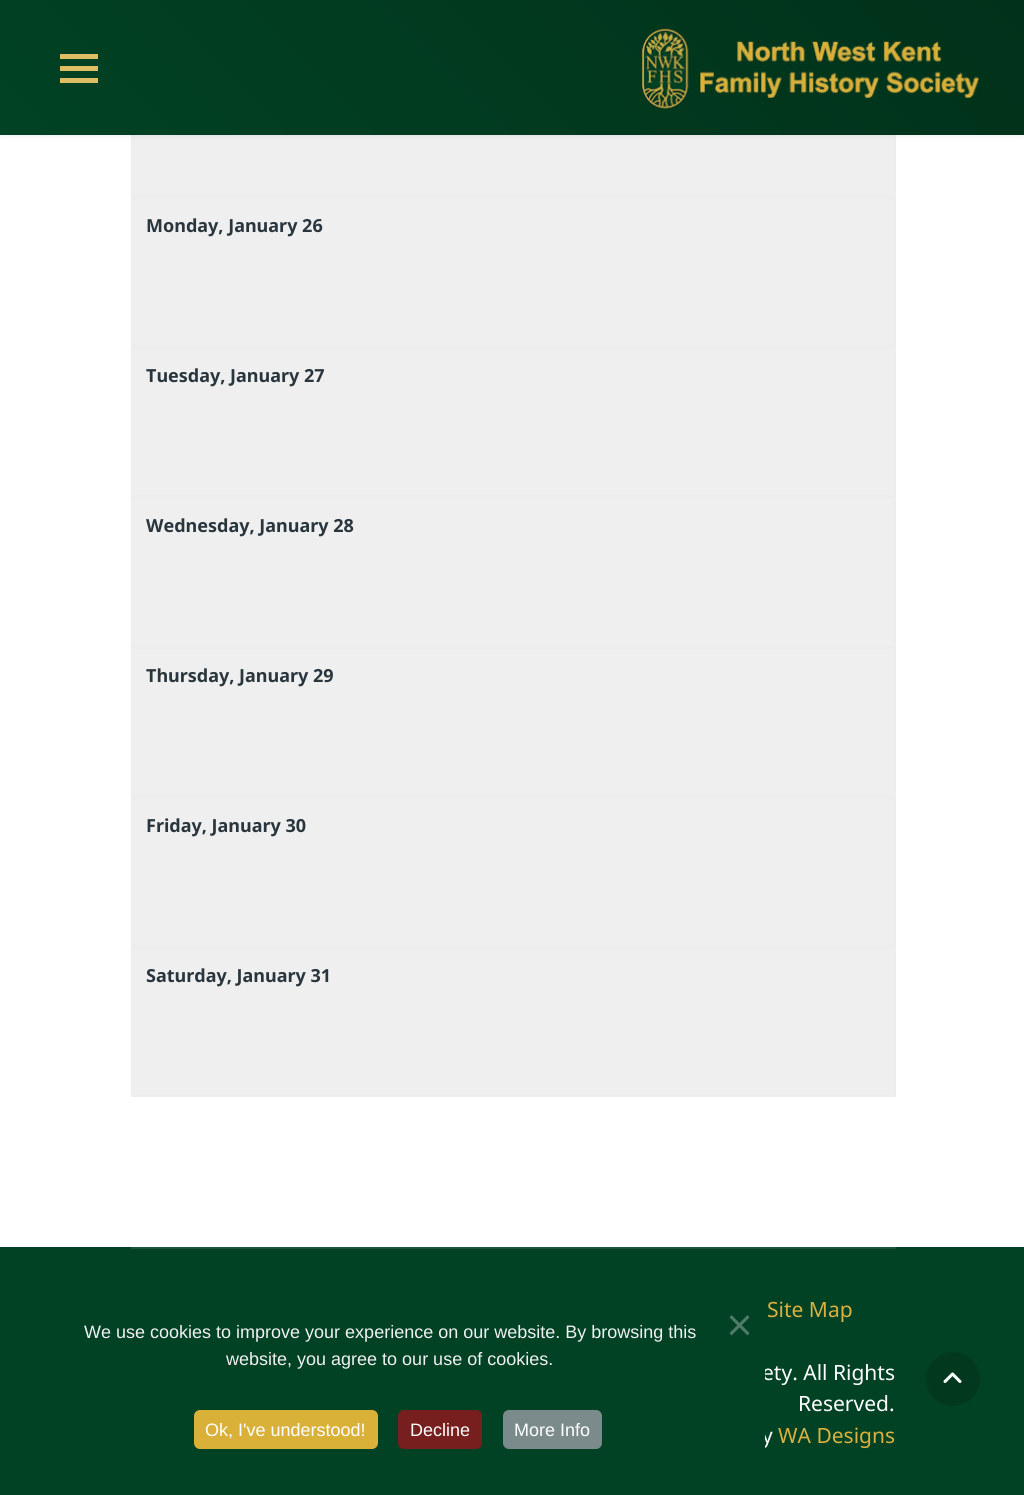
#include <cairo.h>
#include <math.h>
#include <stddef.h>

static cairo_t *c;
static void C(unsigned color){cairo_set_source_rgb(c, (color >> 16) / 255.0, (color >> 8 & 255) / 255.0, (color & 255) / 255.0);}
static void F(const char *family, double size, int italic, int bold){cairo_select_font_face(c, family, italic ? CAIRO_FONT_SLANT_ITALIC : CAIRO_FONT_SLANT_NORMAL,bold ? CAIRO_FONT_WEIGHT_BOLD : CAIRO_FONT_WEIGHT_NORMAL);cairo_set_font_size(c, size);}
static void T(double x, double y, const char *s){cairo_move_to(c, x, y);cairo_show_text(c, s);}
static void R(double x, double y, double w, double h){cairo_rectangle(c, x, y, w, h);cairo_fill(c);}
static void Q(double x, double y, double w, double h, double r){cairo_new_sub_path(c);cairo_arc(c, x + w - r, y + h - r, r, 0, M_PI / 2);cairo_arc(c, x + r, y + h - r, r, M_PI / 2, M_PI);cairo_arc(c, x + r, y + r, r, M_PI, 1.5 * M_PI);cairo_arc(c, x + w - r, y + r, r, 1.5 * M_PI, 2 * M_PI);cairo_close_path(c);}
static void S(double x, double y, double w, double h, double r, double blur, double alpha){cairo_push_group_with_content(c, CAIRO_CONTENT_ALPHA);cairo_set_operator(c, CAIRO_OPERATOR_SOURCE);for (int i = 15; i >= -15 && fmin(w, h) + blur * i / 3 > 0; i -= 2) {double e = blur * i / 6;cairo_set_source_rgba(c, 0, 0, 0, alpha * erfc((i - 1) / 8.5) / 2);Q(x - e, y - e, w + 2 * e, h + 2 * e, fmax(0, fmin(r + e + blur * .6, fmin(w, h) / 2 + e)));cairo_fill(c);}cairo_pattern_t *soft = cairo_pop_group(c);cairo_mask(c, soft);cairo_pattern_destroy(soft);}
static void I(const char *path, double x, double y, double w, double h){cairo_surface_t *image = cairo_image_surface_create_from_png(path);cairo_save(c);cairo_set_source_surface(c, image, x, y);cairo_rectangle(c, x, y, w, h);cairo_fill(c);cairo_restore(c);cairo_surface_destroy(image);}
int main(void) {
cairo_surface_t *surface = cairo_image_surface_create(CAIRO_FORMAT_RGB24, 1024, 1495);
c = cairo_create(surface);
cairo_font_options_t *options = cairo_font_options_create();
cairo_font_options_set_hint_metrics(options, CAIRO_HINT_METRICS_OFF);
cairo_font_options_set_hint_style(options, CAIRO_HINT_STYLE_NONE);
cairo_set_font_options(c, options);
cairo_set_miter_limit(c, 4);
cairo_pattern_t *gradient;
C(0xffffff);
cairo_paint(c);
C(0xefefef);
R(133,135,761,60);
cairo_rectangle(c,132,48,763,148);
C(0xededed);
cairo_stroke(c);
C(0x000000);
S(0,0,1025,135,0,3,.1);
gradient = cairo_pattern_create_linear(222,357,802,-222);
cairo_pattern_add_color_stop_rgba(gradient,0,0.004,0.259,0.141,1);
cairo_pattern_add_color_stop_rgba(gradient,1,0.004,0.192,0.102,1);
cairo_set_source(c,gradient);
cairo_pattern_destroy(gradient);
R(0,0,1024,135);
C(0xe0bf64);
R(60,54,38,5);
R(60,66,38,5);
R(60,78,38,5);
I("1.png",642,28,338,81);
C(0xefefef);
cairo_rectangle(c,132,198,763,148);
cairo_fill_preserve(c);
C(0xededed);
cairo_stroke(c);
F("Noto Sans",18,0,1);
C(0x29363e);
T(146,232,"Monday, January 26");
C(0xefefef);
cairo_rectangle(c,132,348,763,148);
cairo_fill_preserve(c);
C(0xededed);
cairo_stroke(c);
C(0x29363e);
T(146,382,"Tuesday, January 27");
C(0xefefef);
cairo_rectangle(c,132,498,763,148);
cairo_fill_preserve(c);
C(0xededed);
cairo_stroke(c);
C(0x29363e);
T(146,532,"Wednesday, January 28");
C(0xefefef);
cairo_rectangle(c,132,648,763,148);
cairo_fill_preserve(c);
C(0xededed);
cairo_stroke(c);
C(0x29363e);
T(146,682,"Thursday, January 29");
C(0xefefef);
cairo_rectangle(c,132,798,763,148);
cairo_fill_preserve(c);
C(0xededed);
cairo_stroke(c);
C(0x29363e);
T(146,832,"Friday, January 30");
C(0xefefef);
cairo_rectangle(c,132,948,763,148);
cairo_fill_preserve(c);
C(0xededed);
cairo_stroke(c);
C(0x29363e);
T(146,982,"Saturday, January 31");
C(0x014224);
R(0,1247,1024,248);
C(0x1a553a);
R(131,1247,765,2);
F("Noto Sans",21,0,0);
C(0xdbb040);
T(767,1317,"Site Map");
C(0xffffff);
T(762,1380,"ety. All Rights");
T(798,1411,"Reserved.");
T(762,1443,"y");
C(0xdbb040);
T(778,1443,"WA Designs");
C(0x014224);
R(761,1369,4,80);
F("Liberation Sans",18,0,0);
C(0xf1f1f3);
T(84,1338,"We use cookies to improve your experience on our website. By browsing this");
T(226,1365,"website, you agree to our use of cookies.");
C(0x4d7b66);
cairo_new_path(c);
cairo_move_to(c,747.5,1315);
cairo_line_to(c,749.5,1317.5);
cairo_line_to(c,731.5,1335.5);
cairo_line_to(c,729.5,1333);
cairo_close_path(c);
cairo_fill(c);
cairo_new_path(c);
cairo_move_to(c,729.5,1317.5);
cairo_line_to(c,731.5,1315);
cairo_line_to(c,749.5,1333);
cairo_line_to(c,747.5,1335.5);
cairo_close_path(c);
cairo_fill(c);
C(0xd9b138);
Q(194,1410,184,39,6);
cairo_fill(c);
C(0xffffff);
T(205,1436,"Ok, I've understood!");
C(0x771f1f);
Q(398,1410,84,39,6);
cairo_fill(c);
C(0xffffff);
T(410,1436,"Decline");
C(0x7b8a8b);
Q(503,1410,99,39,6);
cairo_fill(c);
C(0xffffff);
T(514,1436,"More Info");
C(0x01381e);
cairo_new_path(c);
cairo_arc(c,953,1379,27,0,2 * M_PI);
cairo_fill(c);
I("2.png",943,1372,19,11);
cairo_surface_write_to_png(surface, "o.png");
cairo_font_options_destroy(options);
cairo_destroy(c);
cairo_surface_destroy(surface);
return 0;
}
